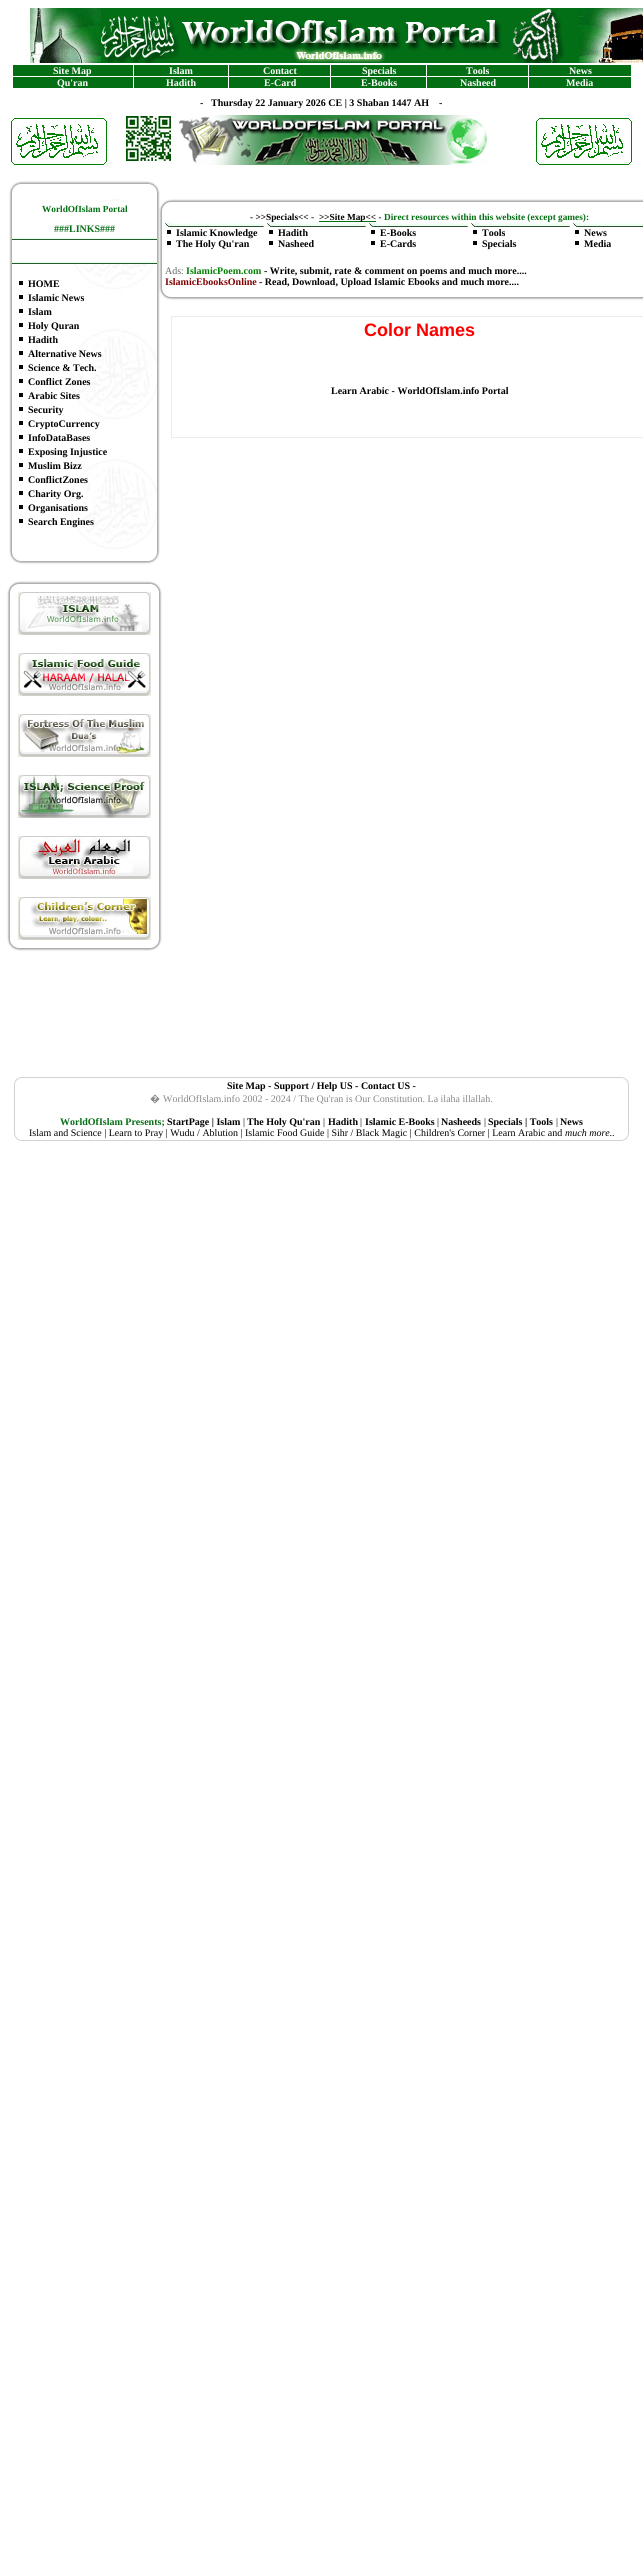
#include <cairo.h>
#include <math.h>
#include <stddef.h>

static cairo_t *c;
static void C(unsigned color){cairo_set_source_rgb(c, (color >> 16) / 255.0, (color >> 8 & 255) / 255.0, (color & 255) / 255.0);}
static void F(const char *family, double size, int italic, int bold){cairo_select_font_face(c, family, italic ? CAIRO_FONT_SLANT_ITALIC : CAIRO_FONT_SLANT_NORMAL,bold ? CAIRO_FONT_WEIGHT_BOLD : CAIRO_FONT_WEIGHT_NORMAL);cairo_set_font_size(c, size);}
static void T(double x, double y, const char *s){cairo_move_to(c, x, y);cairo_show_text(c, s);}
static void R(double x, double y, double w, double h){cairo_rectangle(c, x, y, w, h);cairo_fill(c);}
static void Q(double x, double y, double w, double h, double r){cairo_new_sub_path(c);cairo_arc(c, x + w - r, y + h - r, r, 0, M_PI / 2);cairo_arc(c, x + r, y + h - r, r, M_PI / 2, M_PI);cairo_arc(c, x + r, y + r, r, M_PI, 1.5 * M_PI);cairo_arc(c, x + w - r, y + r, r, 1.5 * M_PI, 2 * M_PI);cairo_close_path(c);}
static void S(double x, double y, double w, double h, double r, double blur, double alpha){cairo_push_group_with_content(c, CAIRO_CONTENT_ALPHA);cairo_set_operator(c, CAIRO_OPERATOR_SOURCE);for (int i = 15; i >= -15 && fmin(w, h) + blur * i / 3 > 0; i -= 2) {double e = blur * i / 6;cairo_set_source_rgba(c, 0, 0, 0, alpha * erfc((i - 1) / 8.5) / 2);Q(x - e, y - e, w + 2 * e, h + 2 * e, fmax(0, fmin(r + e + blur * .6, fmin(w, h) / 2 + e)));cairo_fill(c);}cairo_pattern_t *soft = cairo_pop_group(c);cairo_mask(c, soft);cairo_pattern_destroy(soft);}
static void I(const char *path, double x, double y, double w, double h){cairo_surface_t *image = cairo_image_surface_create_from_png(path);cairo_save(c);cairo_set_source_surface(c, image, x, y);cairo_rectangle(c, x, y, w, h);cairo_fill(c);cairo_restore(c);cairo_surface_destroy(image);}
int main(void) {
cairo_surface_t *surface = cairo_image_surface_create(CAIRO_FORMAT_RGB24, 643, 2564);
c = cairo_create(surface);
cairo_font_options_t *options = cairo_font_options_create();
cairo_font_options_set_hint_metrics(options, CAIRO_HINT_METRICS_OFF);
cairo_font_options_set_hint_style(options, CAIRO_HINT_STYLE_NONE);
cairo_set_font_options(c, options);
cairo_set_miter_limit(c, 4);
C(0xffffff);
cairo_paint(c);
I("1.png",30,8,613,55);
C(0x046e14);
R(13,65,120,11);
F("Liberation Serif",10,0,1);
C(0xffffff);
T(53,74,"Site Map");
C(0x046e14);
R(134,65,94,11);
C(0xffffff);
T(169,74,"Islam");
C(0x046e14);
R(229,65,101,11);
C(0xffffff);
T(263,74,"Contact");
C(0x046e14);
R(331,65,95,11);
C(0xffffff);
T(362,74,"Specials");
C(0x046e14);
R(427,65,101,11);
C(0xffffff);
T(466,74,"Tools");
C(0x046e14);
R(529,65,102,11);
C(0xffffff);
T(569,74,"News");
C(0x046e14);
R(13,77,120,11);
C(0xffffff);
T(57,86,"Qu'ran");
C(0x046e14);
R(134,77,94,11);
C(0xffffff);
T(166,86,"Hadith");
C(0x046e14);
R(229,77,101,11);
C(0xffffff);
T(264,86,"E-Card");
C(0x046e14);
R(331,77,95,11);
C(0xffffff);
T(361,86,"E-Books");
C(0x046e14);
R(427,77,101,11);
C(0xffffff);
T(460,86,"Nasheed");
C(0x046e14);
R(529,77,102,11);
C(0xffffff);
T(566,86,"Media");
C(0x000000);
T(200,106,"-");
T(211,106,"Thursday 22 January 2026 CE | 3 Shaban 1447 AH");
T(439,106,"-");
I("2.png",11,118,96,47);
I("3.png",126,116,45,45);
I("4.png",179,115,309,50);
I("2.png",536,118,96,47);
C(0x000000);
S(11,183,147,379,10,1,.6);
I("5.png",12,183,146,379);
Q(11.5,183.5,146,378,9.5);
C(0xb0b0b0);
cairo_set_line_width(c,1);
cairo_stroke(c);
C(0xffffff);
R(80,202,68,14);
F("Liberation Serif",9.3,0,1);
C(0x046e14);
T(42,212,"WorldOfIslam Portal");
I("6.png",12,216,145,24);
F("Liberation Serif",10,0,1);
T(54,232,"###LINKS###");
I("6.png",12,240,145,24);
C(0x000000);
T(28,287,"HOME");
C(0x040404);
R(19,281,4,4);
C(0x000000);
T(28,301,"Islamic News");
C(0x040404);
R(19,295,4,4);
C(0x000000);
T(28,315,"Islam");
C(0x040404);
R(19,309,4,4);
C(0x000000);
T(28,329,"Holy Quran");
C(0x040404);
R(19,323,4,4);
C(0x000000);
T(28,343,"Hadith");
C(0x040404);
R(19,337,4,4);
C(0x000000);
T(28,357,"Alternative News");
C(0x040404);
R(19,351,4,4);
C(0x000000);
T(28,371,"Science & Tech.");
C(0x040404);
R(19,365,4,4);
C(0x000000);
T(28,385,"Conflict Zones");
C(0x040404);
R(19,379,4,4);
C(0x000000);
T(28,399,"Arabic Sites");
C(0x040404);
R(19,393,4,4);
C(0x000000);
T(28,413,"Security");
C(0x040404);
R(19,407,4,4);
C(0x000000);
T(28,427,"CryptoCurrency");
C(0x040404);
R(19,421,4,4);
C(0x000000);
T(28,441,"InfoDataBases");
C(0x040404);
R(19,435,4,4);
C(0x000000);
T(28,455,"Exposing Injustice");
C(0x040404);
R(19,449,4,4);
C(0x000000);
T(28,469,"Muslim Bizz");
C(0x040404);
R(19,463,4,4);
C(0x000000);
T(28,483,"ConflictZones");
C(0x040404);
R(19,477,4,4);
C(0x000000);
T(28,497,"Charity Org.");
C(0x040404);
R(19,491,4,4);
C(0x000000);
T(28,511,"Organisations");
C(0x040404);
R(19,505,4,4);
C(0x000000);
T(28,525,"Search Engines");
C(0x040404);
R(19,519,4,4);
C(0x000000);
S(9,583,151,366,10,1,.6);
C(0xffffff);
Q(9.5,583.5,150,365,9.5);
cairo_fill_preserve(c);
C(0xb0b0b0);
cairo_stroke(c);
I("7.png",18,592,133,43);
I("8.png",18,653,133,43);
I("9.png",18,714,133,43);
I("10.png",18,775,133,43);
I("11.png",18,836,133,43);
I("12.png",18,897,133,43);
C(0x000000);
S(161,201,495,97,10,1,.6);
C(0xffffff);
Q(161.5,201.5,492,96,9.5);
cairo_fill_preserve(c);
C(0xb0b0b0);
cairo_stroke(c);
F("Liberation Serif",9.3,0,1);
C(0x000000);
T(250,220,"- >>Specials<< -");
C(0x046e14);
R(319,221,57,1);
C(0x000000);
T(319,220,">>Site Map<< -");
I("13.png",369,222,99,5);
I("13.png",471,222,99,5);
I("14.png",573,222,70,5);
C(0x046e14);
T(384,220,"Direct resources within this website (except games):");
I("13.png",165,222,99,5);
I("13.png",267,222,99,5);
F("Liberation Serif",10,0,1);
C(0x000000);
T(176,236,"Islamic Knowledge");
C(0x040404);
R(167,230,4,4);
C(0x000000);
T(176,247,"The Holy Qu'ran");
C(0x040404);
R(167,241,4,4);
C(0x000000);
T(278,236,"Hadith");
C(0x040404);
R(269,230,4,4);
R(269,241,4,4);
C(0x000000);
T(278,247,"Nasheed");
T(380,236,"E-Books");
C(0x040404);
R(371,230,4,4);
C(0x000000);
T(380,247,"E-Cards");
C(0x040404);
R(371,241,4,4);
R(473,230,4,4);
C(0x000000);
T(482,236,"Tools");
C(0x040404);
R(473,241,4,4);
C(0x000000);
T(482,247,"Specials");
C(0x040404);
R(575,230,4,4);
C(0x000000);
T(584,236,"News");
C(0x040404);
R(575,241,4,4);
C(0x000000);
T(584,247,"Media");
F("Liberation Serif",10,0,0);
C(0x666666);
T(165,274,"Ads:");
F("Liberation Serif",10,0,1);
C(0x008000);
T(186,274,"IslamicPoem.com");
C(0x000000);
T(264,274,"- Write, submit, rate & comment on poems and much more....");
C(0x800000);
T(165,285,"IslamicEbooksOnline");
C(0x000000);
T(259,285,"- Read, Download, Upload Islamic Ebooks and much more....");
C(0xe7ecef);
R(171,316,472,1);
R(171,437,472,1);
R(171,316,1,122);
F("Liberation Sans",18,0,1);
C(0xff0000);
T(364,336,"Color Names");
F("Liberation Serif",10,0,1);
C(0x000000);
T(331,394,"Learn Arabic - WorldOfIslam.info Portal");
Q(14.5,1077.5,614,63,7.5);
C(0xd2d2d2);
cairo_stroke(c);
C(0x000000);
T(227,1089,"Site Map - Support / Help US - Contact US -");
F("Noto Sans",10,0,0);
C(0x888888);
T(150,1102,"�");
F("Liberation Serif",10,0,0);
T(163,1102,"WorldOfIslam.info 2002 - 2024 / The Qu'ran is Our Constitution. La ilaha illallah.");
F("Liberation Serif",10,0,1);
C(0x046e14);
T(60,1125,"WorldOfIslam Presents;");
C(0x000000);
T(167,1125,"StartPage | Islam");
F("Liberation Serif",10,0,0);
T(243,1125,"|");
F("Liberation Serif",10,0,1);
T(247,1125,"The Holy Qu'ran");
F("Liberation Serif",10,0,0);
T(323,1125,"|");
F("Liberation Serif",10,0,1);
T(328,1125,"Hadith");
F("Liberation Serif",10,0,0);
T(360,1125,"|");
F("Liberation Serif",10,0,1);
T(365,1125,"Islamic E-Books");
F("Liberation Serif",10,0,0);
T(437,1125,"|");
F("Liberation Serif",10,0,1);
T(441,1125,"Nasheeds");
F("Liberation Serif",10,0,0);
T(484,1125,"|");
F("Liberation Serif",10,0,1);
T(488,1125,"Specials | Tools");
F("Liberation Serif",10,0,0);
T(556,1125,"|");
F("Liberation Serif",10,0,1);
T(560,1125,"News");
F("Liberation Serif",10,0,0);
T(29,1136,"Islam and Science | Learn to Pray | Wudu / Ablution | Islamic Food Guide | Sihr / Black Magic | Children's Corner | Learn Arabic and");
F("Liberation Serif",10,1,0);
T(565,1136,"much more..");
cairo_surface_write_to_png(surface, "o.png");
cairo_font_options_destroy(options);
cairo_destroy(c);
cairo_surface_destroy(surface);
return 0;
}
